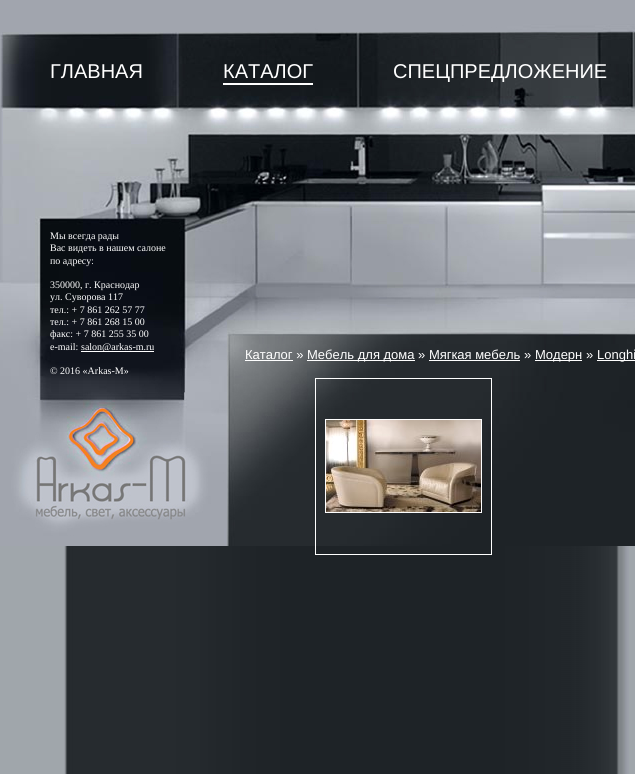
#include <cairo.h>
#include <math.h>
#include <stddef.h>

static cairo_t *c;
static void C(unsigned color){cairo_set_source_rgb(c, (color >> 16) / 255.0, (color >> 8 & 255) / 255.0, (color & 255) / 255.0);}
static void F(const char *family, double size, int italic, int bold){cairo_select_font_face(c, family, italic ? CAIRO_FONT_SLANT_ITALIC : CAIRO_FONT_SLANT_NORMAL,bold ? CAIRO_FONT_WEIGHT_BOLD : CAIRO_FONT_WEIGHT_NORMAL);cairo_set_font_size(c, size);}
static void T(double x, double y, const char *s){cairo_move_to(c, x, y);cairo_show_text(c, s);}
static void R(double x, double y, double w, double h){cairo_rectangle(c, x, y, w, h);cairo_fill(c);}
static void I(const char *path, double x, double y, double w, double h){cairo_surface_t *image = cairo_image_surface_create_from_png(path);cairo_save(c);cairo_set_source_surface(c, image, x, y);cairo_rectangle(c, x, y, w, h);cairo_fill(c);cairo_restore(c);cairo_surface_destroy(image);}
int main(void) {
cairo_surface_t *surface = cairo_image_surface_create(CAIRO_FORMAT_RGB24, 635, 774);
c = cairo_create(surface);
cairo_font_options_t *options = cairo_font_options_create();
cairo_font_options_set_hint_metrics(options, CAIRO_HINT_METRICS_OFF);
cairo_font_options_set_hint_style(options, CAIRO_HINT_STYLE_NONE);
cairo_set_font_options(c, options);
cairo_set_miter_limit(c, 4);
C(0xa0a6ab);
cairo_paint(c);
I("1.png",64,546,565,228);
I("2.png",0,0,635,546);
F("Liberation Sans",20,0,0);
C(0xffffff);
T(50,78,"ГЛАВНАЯ");
R(223,83,90,2);
T(223,78,"КАТАЛОГ");
T(393,78,"СПЕЦПРЕДЛОЖЕНИЕ");
F("Liberation Serif",10,0,0);
T(50,239,"Мы всегда рады");
T(50,251,"Вас видеть в нашем салоне");
T(50,264,"по адресу:");
T(50,288,"350000, г. Краснодар");
T(50,300,"ул. Суворова 117");
T(50,313,"тел.: + 7 861 262 57 77");
T(50,325,"тел.: + 7 861 268 15 00");
T(50,337,"факс: + 7 861 255 35 00");
T(50,350,"e-mail:");
R(81,351,73,1);
T(81,350,"salon@arkas-m.ru");
T(50,374,"© 2016 «Arkas-M»");
F("Liberation Sans",13,0,0);
T(245,359,"Каталог »");
R(245,360,48,1);
R(307,360,108,1);
T(307,359,"Мебель для дома » Мягкая мебель »");
R(535,360,47,1);
T(535,359,"Модерн »");
R(597,360,38,1);
T(597,359,"Longhi");
R(429,360,91,1);
cairo_rectangle(c,315.5,378.5,176,176);
cairo_set_line_width(c,1);
cairo_stroke(c);
cairo_rectangle(c,325.5,419.5,156,93);
cairo_stroke(c);
I("3.png",326,420,155,92);
cairo_surface_write_to_png(surface, "o.png");
cairo_font_options_destroy(options);
cairo_destroy(c);
cairo_surface_destroy(surface);
return 0;
}
